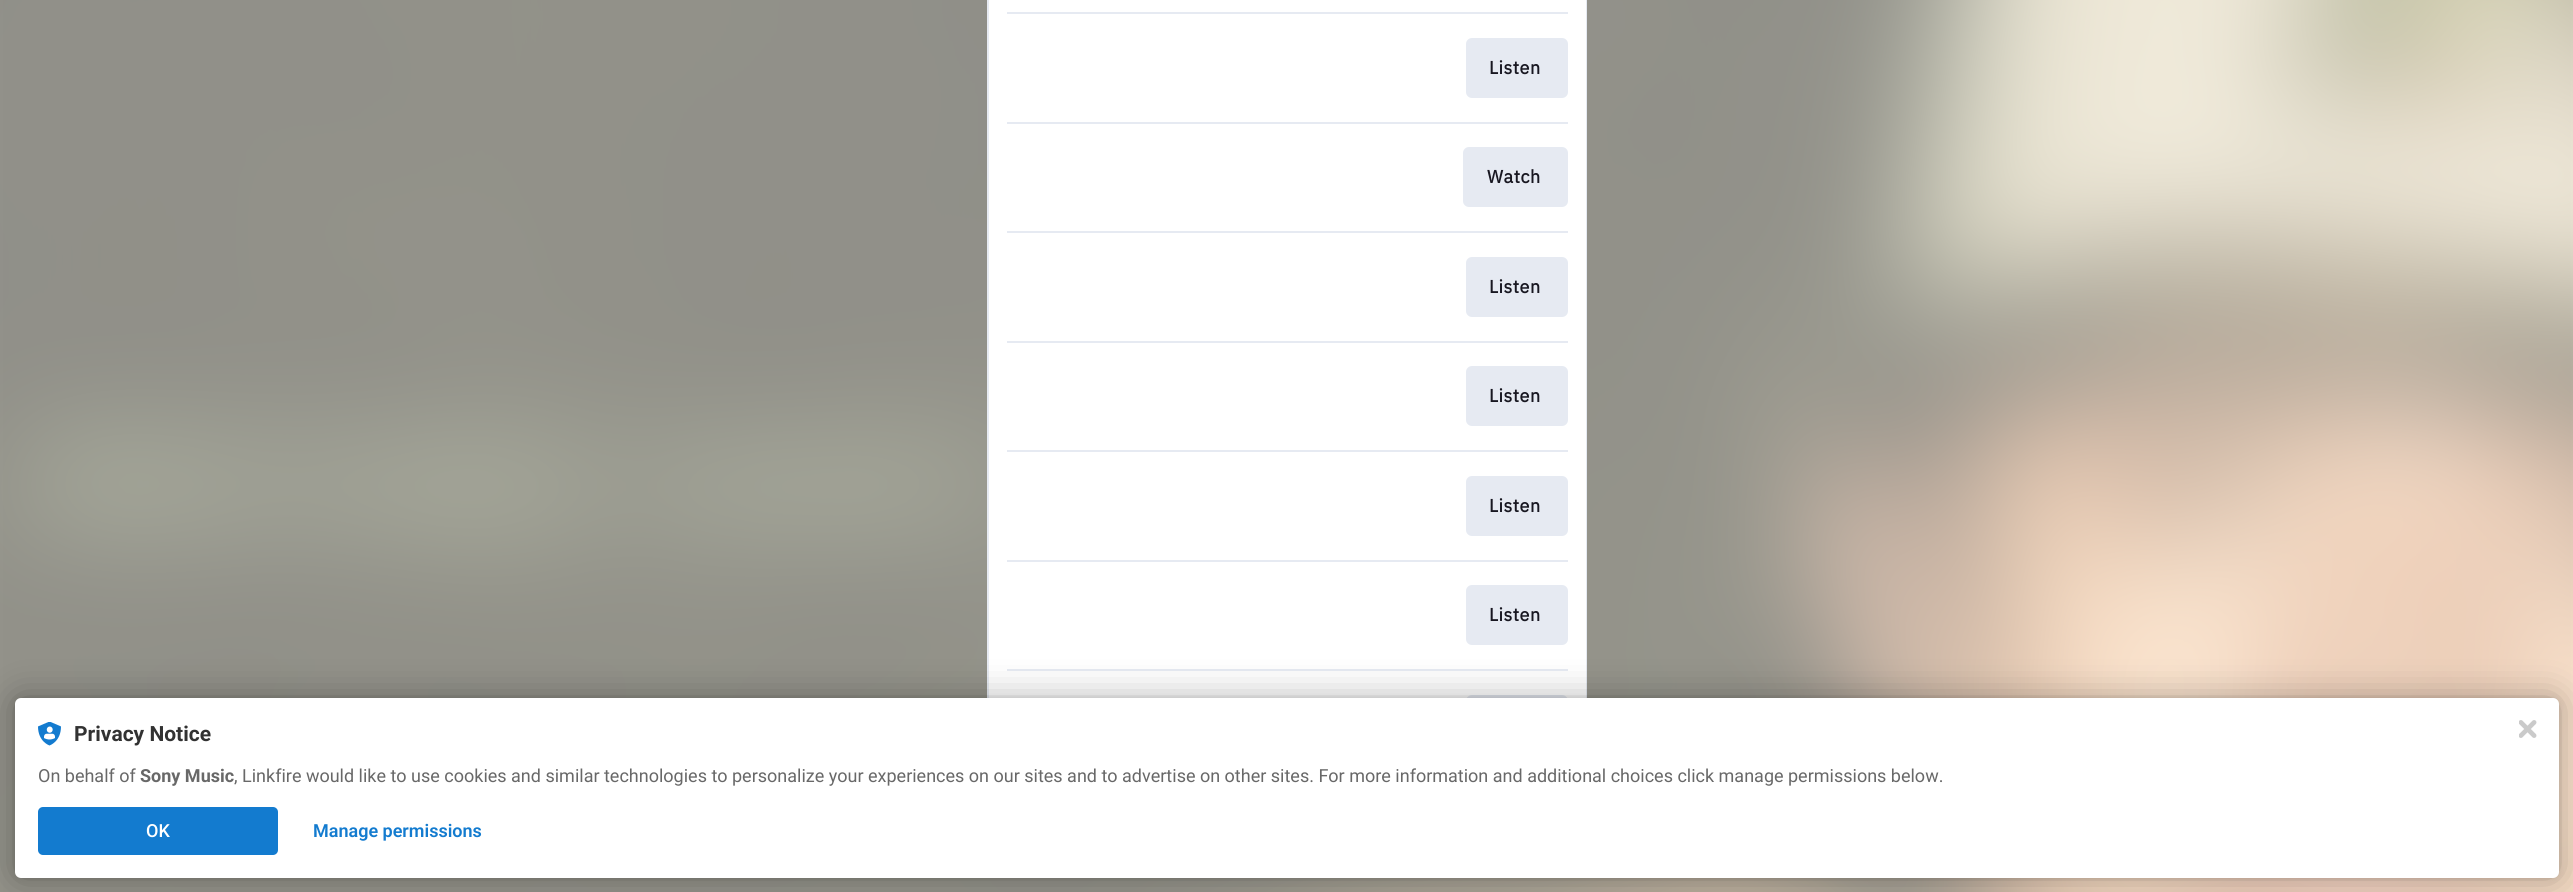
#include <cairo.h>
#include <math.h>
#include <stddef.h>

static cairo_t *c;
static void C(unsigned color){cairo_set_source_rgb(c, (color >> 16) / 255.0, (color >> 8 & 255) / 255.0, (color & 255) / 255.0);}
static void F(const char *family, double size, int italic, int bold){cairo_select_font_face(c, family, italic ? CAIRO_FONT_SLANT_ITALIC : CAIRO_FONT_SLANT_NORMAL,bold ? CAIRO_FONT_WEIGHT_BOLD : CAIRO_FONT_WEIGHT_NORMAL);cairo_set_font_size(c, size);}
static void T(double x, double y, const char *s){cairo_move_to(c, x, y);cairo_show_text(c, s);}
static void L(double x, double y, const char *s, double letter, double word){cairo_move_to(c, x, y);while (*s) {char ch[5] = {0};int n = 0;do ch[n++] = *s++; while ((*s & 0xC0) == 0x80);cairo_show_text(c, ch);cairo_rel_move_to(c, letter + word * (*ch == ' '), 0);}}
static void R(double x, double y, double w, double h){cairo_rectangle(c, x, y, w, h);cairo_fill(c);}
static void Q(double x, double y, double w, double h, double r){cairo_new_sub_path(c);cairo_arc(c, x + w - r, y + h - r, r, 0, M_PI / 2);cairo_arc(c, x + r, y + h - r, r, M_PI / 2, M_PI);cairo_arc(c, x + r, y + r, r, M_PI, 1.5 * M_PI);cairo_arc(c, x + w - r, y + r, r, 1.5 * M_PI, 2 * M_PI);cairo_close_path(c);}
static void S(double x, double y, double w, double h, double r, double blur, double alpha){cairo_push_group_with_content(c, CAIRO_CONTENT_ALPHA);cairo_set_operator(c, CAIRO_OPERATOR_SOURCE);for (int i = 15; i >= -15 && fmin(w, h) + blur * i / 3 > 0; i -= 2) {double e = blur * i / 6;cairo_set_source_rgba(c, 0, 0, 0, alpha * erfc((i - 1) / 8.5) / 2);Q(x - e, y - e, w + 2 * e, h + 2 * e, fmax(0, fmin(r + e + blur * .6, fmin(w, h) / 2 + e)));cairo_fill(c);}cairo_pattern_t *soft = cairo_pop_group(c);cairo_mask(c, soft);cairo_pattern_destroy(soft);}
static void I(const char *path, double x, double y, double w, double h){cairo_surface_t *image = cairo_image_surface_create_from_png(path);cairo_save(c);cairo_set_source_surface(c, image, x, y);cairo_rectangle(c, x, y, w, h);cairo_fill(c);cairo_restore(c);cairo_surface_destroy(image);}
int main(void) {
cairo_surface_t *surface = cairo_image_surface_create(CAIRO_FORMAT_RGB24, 2573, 892);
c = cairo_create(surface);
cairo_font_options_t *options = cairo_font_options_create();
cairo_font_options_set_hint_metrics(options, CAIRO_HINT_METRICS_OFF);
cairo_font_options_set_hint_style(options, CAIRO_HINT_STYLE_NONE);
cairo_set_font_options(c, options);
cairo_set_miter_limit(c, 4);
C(0xffffff);
cairo_paint(c);
I("1.png",0,0,2573,892);
cairo_rectangle(c,988,-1,598,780);
C(0xe6eaf2);
cairo_stroke(c);
C(0xffffff);
R(989,0,597,698);
C(0xe6eaf2);
R(1007,12,561,2);
Q(1466,38,102,60,6);
cairo_fill(c);
F("IBM Plex Sans",18,0,1);
C(0x181721);
L(1489,74,"Listen",.5,0);
C(0xe6eaf2);
R(1007,122,561,2);
Q(1463,147,105,60,6);
cairo_fill(c);
C(0x181721);
L(1487,183,"Watch",.5,0);
C(0xe6eaf2);
R(1007,231,561,2);
Q(1466,257,102,60,6);
cairo_fill(c);
C(0x181721);
L(1489,293,"Listen",.5,0);
C(0xe6eaf2);
R(1007,341,561,2);
Q(1466,366,102,60,6);
cairo_fill(c);
C(0x181721);
L(1489,402,"Listen",.5,0);
C(0xe6eaf2);
R(1007,450,561,2);
Q(1466,476,102,60,6);
cairo_fill(c);
C(0x181721);
L(1489,512,"Listen",.5,0);
C(0xe6eaf2);
R(1007,560,561,2);
Q(1466,585,102,60,6);
cairo_fill(c);
C(0x181721);
L(1489,621,"Listen",.5,0);
C(0xe6eaf2);
R(1007,669,561,2);
Q(1466,695,102,60,6);
cairo_fill(c);
C(0x000000);
S(15,698,2544,180,6,3,.12);
S(15,698,2544,180,6,18,.3);
C(0xffffff);
Q(15,698,2544,180,6);
cairo_fill(c);
I("2.png",38,722,23,24);
F("Roboto",21,0,1);
C(0x323232);
T(74,741,"Privacy Notice");
F("Roboto",18,0,0);
C(0x686868);
T(38,782,"On behalf of");
F("Roboto",18,0,1);
T(140,782,"Sony Music");
F("Roboto",18,0,0);
T(234,782,", Linkfire would like to use cookies and similar technologies to personalize your experiences on our sites and to advertise on other sites. For more information and additional choices click manage permissions below.");
C(0x137bcf);
Q(38,807,240,48,5);
cairo_fill(c);
F("Roboto Medium",18,0,0);
C(0xffffff);
T(146,837,"OK");
F("Roboto SemiBold",18,0,0);
C(0x137bcf);
T(313,837,"Manage permissions");
I("3.png",2519,720,18,18);
cairo_surface_write_to_png(surface, "o.png");
cairo_font_options_destroy(options);
cairo_destroy(c);
cairo_surface_destroy(surface);
return 0;
}
